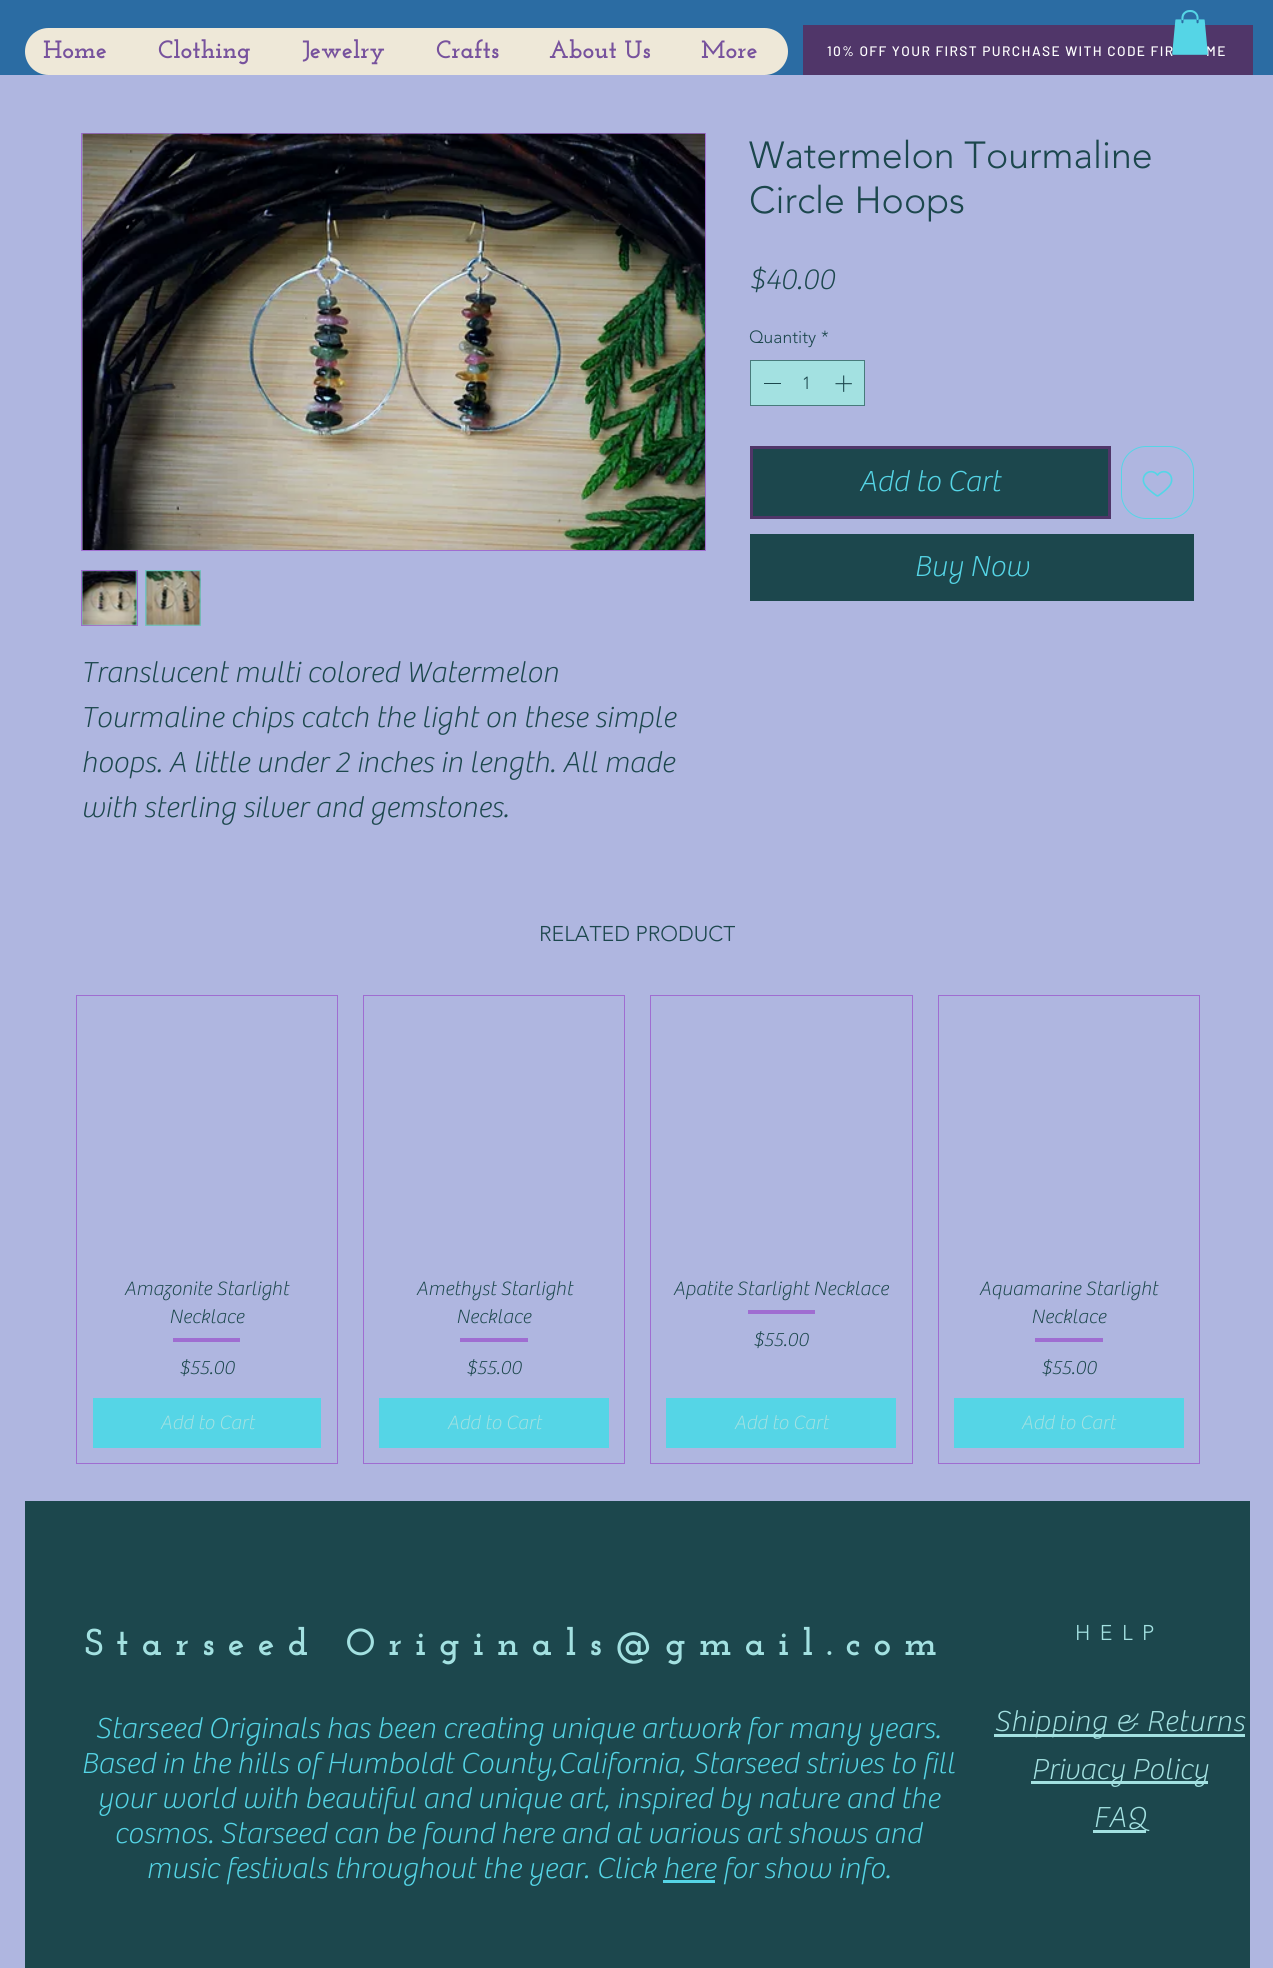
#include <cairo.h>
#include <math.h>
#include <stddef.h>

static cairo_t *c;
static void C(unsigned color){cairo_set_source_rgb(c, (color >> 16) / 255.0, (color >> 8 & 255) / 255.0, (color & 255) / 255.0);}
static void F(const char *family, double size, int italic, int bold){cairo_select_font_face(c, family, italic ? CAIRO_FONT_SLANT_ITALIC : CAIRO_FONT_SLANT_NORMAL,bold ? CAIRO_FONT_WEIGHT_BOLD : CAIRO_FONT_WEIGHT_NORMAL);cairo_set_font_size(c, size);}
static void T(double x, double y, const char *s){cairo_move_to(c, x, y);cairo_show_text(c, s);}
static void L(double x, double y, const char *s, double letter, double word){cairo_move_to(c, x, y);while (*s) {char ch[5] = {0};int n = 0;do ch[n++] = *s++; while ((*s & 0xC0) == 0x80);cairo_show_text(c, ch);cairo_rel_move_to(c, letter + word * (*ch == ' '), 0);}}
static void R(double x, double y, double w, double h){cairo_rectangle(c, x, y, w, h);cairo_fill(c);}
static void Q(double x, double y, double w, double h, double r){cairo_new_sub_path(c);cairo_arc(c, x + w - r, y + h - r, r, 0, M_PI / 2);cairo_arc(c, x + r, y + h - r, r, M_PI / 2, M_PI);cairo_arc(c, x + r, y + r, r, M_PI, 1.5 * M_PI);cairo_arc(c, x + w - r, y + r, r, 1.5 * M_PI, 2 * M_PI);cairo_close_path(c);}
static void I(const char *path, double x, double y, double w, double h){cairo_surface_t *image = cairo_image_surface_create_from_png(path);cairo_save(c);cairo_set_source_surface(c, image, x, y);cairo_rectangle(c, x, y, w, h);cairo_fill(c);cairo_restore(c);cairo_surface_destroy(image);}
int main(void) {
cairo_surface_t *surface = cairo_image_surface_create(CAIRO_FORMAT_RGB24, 1273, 1968);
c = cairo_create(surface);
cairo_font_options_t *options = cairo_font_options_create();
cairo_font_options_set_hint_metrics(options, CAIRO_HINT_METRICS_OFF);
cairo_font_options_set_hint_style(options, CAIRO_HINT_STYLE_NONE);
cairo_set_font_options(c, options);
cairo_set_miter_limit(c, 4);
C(0xafb6e0);
cairo_paint(c);
C(0x2b6ca3);
R(0,0,1273,75);
C(0x503669);
R(803,25,450,50);
F("Barlow Medium",13.75,0,0);
C(0xffffff);
L(1206,56,"ME",1.4,0);
I("1.png",1172,10,36,45);
C(0xeee8d8);
Q(25,28,763,47,23.5);
cairo_fill(c);
F("Josefin Slab",25,0,1);
C(0x77529d);
T(43,58,"Home");
T(158,58,"Clothing");
T(302,58,"Jewelry");
T(436,58,"Crafts");
T(549,58,"About Us");
T(701,58,"More");
F("Barlow Medium",13.75,0,0);
C(0xffffff);
L(827,56,"10% OFF YOUR FIRST PURCHASE WITH CODE FIR",1.4,0);
F("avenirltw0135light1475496 Light",37.5,0,0);
C(0x1c474d);
T(749,168,"Watermelon Tourmaline");
T(749,213,"Circle Hoops");
F("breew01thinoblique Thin",30,0,0);
T(749,289,"$40.00");
F("avenirltw0135light1475496 Light",17.5,0,0);
T(749,343,"Quantity");
T(821,343,"*");
C(0xa3e1e1);
cairo_rectangle(c,750.5,360.5,114,45);
cairo_fill_preserve(c);
C(0x477b7b);
cairo_set_line_width(c,1);
cairo_stroke(c);
C(0x1c474d);
R(764,383,17,1);
T(802,389,"1");
I("2.png",835,375,17,17);
cairo_rectangle(c,751.5,447.5,358,70);
cairo_fill_preserve(c);
C(0x503669);
cairo_set_line_width(c,3);
cairo_stroke(c);
F("breew01thinoblique Thin",30,0,0);
C(0x55d5e6);
T(859,491,"Add to Cart");
Q(1121.5,446.5,72,72,24.5);
cairo_set_line_width(c,1);
cairo_stroke(c);
I("3.png",1142,470,31,27);
C(0x1c474d);
R(750,534,444,67);
C(0x55d5e6);
T(914,576,"Buy Now");
cairo_rectangle(c,81.5,133.5,624,417);
C(0x9f6dd1);
cairo_stroke(c);
I("4.png",82,133,623,417);
C(0x72c4c4);
cairo_rectangle(c,81.5,570.5,56,55);
cairo_fill_preserve(c);
C(0x9f6dd1);
cairo_stroke(c);
I("5.png",82,571,55,55);
C(0x72c4c4);
R(145,570,56,56);
I("6.png",145,571,56,55);
C(0x1c474d);
T(81,682,"Translucent multi colored Watermelon");
T(81,727,"Tourmaline chips catch the light on these simple");
T(81,772,"hoops. A little under 2 inches in length. All made");
T(81,817,"with sterling silver and gemstones.");
F("avenirltw0135light1475496 Light",21.25,0,0);
T(539,941,"RELATED PRODUCT");
cairo_rectangle(c,76.5,995.5,261,468);
C(0x9f6dd1);
cairo_stroke(c);
F("breew01thinoblique Thin",20,0,0);
C(0x1c474d);
T(124,1295,"Amazonite Starlight");
T(169,1323,"Necklace");
C(0x9f6dd1);
R(173,1338,67,4);
C(0x1c474d);
T(179,1374,"$55.00");
C(0x55d5e6);
R(93,1398,228,50);
C(0xa3e1e1);
T(160,1429,"Add to Cart");
cairo_rectangle(c,363.5,995.5,261,468);
C(0x9f6dd1);
cairo_stroke(c);
C(0x1c474d);
T(416,1295,"Amethyst Starlight");
T(456,1323,"Necklace");
C(0x9f6dd1);
R(460,1338,68,4);
C(0x1c474d);
T(466,1374,"$55.00");
C(0x55d5e6);
R(379,1398,230,50);
C(0xa3e1e1);
T(447,1429,"Add to Cart");
cairo_rectangle(c,650.5,995.5,262,468);
C(0x9f6dd1);
cairo_stroke(c);
C(0x1c474d);
T(673,1295,"Apatite Starlight Necklace");
C(0x9f6dd1);
R(748,1310,67,4);
C(0x1c474d);
T(753,1346,"$55.00");
C(0x55d5e6);
R(666,1398,230,50);
C(0xa3e1e1);
T(734,1429,"Add to Cart");
cairo_rectangle(c,938.5,995.5,261,468);
C(0x9f6dd1);
cairo_stroke(c);
C(0x1c474d);
T(979,1295,"Aquamarine Starlight");
T(1031,1323,"Necklace");
C(0x9f6dd1);
R(1035,1338,68,4);
C(0x1c474d);
T(1041,1374,"$55.00");
C(0x55d5e6);
R(954,1398,230,50);
C(0xa3e1e1);
T(1021,1429,"Add to Cart");
C(0x1c474d);
R(25,1501,1225,467);
F("Josefin Slab",37.5,0,1);
C(0xa3e1e1);
L(85,1655,"Starseed Originals@gmail.com",13.1,0);
F("breew01thinoblique Thin",30,0,0);
C(0x55d5e6);
T(95,1738,"Starseed Originals has been creating unique artwork for many years.");
T(81,1773,"Based in the hills of Humboldt County,California, Starseed strives to fill");
T(97,1808,"your world with beautiful and unique art, inspired by nature and the");
T(114,1843,"cosmos. Starseed can be found here and at various art shows and");
T(146,1878,"music festivals throughout the year. Click here for show info.");
R(663,1880,52,3);
F("avenirltw0135light1475496 Light",21.25,0,0);
C(0xa3e1e1);
L(1075,1640,"HELP",9.5,0);
R(994,1734,251,3);
F("breew01thinoblique Thin",30,0,0);
L(994,1731,"Shipping & Returns",.6,0);
R(1031,1781,177,3);
T(1031,1779,"Privacy Policy");
R(1093,1830,53,3);
L(1093,1827,"FAQ",.6,0);
cairo_surface_write_to_png(surface, "o.png");
cairo_font_options_destroy(options);
cairo_destroy(c);
cairo_surface_destroy(surface);
return 0;
}
